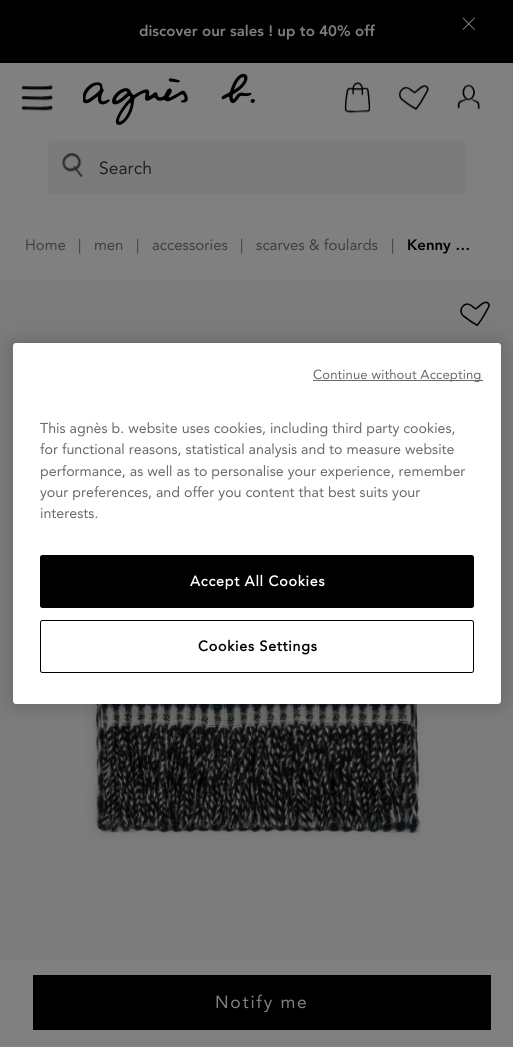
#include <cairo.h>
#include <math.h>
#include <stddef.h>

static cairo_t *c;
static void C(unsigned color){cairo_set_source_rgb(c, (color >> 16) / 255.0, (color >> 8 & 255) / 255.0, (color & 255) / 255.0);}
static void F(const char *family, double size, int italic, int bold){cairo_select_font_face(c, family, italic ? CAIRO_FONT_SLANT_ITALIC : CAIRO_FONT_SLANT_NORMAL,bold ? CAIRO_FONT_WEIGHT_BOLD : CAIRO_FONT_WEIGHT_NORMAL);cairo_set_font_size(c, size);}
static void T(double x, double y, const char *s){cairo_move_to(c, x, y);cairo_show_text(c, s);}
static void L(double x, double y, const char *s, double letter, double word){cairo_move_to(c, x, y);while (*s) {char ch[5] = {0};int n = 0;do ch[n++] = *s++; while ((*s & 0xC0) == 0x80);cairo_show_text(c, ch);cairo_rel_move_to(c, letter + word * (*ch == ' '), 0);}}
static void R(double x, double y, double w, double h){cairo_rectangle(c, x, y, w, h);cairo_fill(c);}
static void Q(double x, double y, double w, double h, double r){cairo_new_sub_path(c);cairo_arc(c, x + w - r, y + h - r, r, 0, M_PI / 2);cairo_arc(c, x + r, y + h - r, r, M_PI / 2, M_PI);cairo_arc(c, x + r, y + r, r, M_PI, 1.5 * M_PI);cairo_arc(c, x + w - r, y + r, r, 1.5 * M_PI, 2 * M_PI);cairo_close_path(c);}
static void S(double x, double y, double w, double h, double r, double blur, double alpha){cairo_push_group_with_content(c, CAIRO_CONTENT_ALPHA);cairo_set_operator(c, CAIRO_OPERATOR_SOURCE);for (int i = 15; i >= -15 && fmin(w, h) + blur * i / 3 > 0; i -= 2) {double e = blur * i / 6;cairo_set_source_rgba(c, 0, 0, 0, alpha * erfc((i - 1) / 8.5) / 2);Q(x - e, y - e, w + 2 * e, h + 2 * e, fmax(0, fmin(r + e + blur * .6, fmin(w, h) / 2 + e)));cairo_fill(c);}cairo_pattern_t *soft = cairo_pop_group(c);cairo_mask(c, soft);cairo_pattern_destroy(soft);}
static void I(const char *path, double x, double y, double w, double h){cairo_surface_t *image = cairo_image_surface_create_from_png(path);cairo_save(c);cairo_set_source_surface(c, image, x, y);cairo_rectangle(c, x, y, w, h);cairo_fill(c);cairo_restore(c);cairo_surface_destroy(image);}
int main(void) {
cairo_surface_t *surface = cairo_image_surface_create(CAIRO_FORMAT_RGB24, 513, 1047);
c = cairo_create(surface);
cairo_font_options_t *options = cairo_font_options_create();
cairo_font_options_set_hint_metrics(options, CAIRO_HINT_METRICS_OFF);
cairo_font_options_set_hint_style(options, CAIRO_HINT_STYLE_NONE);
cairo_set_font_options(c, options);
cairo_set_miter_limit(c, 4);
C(0x808080);
cairo_paint(c);
C(0x000000);
R(0,0,513,63);
F("Avenir Black",15,0,0);
C(0x808080);
T(139,36,"discover our sales ! up to 40% off");
I("1.png",462,17,13,13);
I("2.png",21,85,32,26);
I("3.png",83,74,172,51);
I("4.png",344,82,27,32);
I("5.png",399,85,30,26);
I("6.png",457,84,23,26);
C(0x7b7b7b);
Q(49,141,416,53,2.5);
cairo_fill(c);
Q(48.5,140.5,417,54,3.5);
cairo_set_line_width(c,1);
cairo_stroke(c);
I("7.png",62,153,22,25);
F("Avenir",17.5,0,0);
C(0x212121);
T(99,174,"Search");
F("Avenir",15,0,0);
C(0x3b4041);
T(25,250,"Home");
T(78,250,"|");
T(94,250,"men");
T(136,250,"|");
T(152,250,"accessories");
T(240,250,"|");
T(256,250,"scarves & foulards");
T(391,250,"|");
F("Avenir Black",15,0,0);
C(0x000000);
T(407,250,"Kenny …");
I("8.png",0,280,513,679);
I("9.png",460,301,30,25);
R(33,975,458,55);
F("Avenir",17.5,0,0);
C(0x808080);
L(215,1008,"Notify me",1.75,0);
C(0x000000);
S(13,343,488,361,3,11,.2);
C(0xffffff);
Q(13,343,488,361,3);
cairo_fill(c);
C(0x696969);
R(313,380,170,1);
F("Avenir",13.1,0,0);
L(313,379,"Continue without Accepting",.1,0);
F("Avenir",14.25,0,0);
T(40,433,"This agnès b. website uses cookies, including third party cookies,");
T(40,454,"for functional reasons, statistical analysis and to measure website");
T(40,476,"performance, as well as to personalise your experience, remember");
T(40,497,"your preferences, and offer you content that best suits your");
T(40,518,"interests.");
C(0x000000);
Q(40.5,555.5,433,52,2);
cairo_fill_preserve(c);
cairo_stroke(c);
F("Avenir",14.25,0,1);
C(0xffffff);
L(190,586,"Accept All Cookies",.75,0);
Q(40.5,620.5,433,52,2);
C(0x000000);
cairo_stroke(c);
L(198,651,"Cookies Settings",.75,0);
cairo_surface_write_to_png(surface, "o.png");
cairo_font_options_destroy(options);
cairo_destroy(c);
cairo_surface_destroy(surface);
return 0;
}
